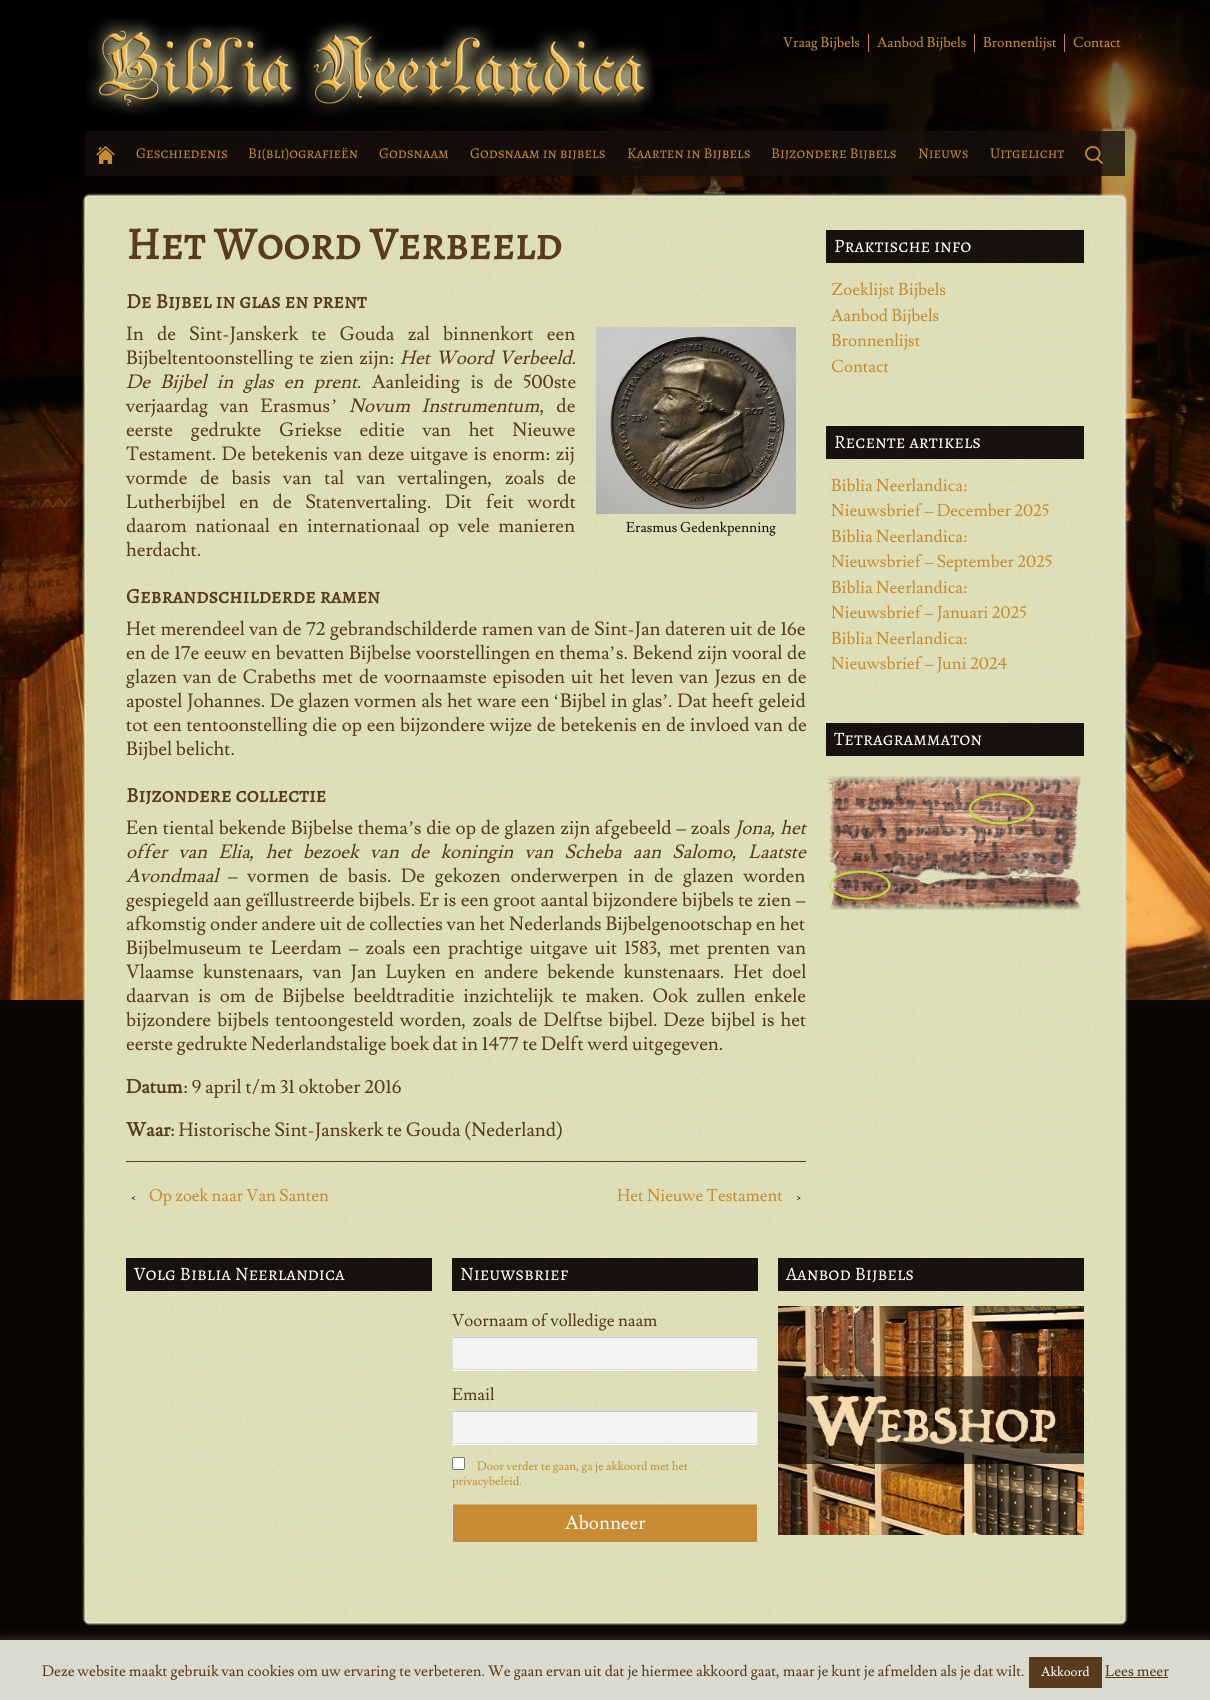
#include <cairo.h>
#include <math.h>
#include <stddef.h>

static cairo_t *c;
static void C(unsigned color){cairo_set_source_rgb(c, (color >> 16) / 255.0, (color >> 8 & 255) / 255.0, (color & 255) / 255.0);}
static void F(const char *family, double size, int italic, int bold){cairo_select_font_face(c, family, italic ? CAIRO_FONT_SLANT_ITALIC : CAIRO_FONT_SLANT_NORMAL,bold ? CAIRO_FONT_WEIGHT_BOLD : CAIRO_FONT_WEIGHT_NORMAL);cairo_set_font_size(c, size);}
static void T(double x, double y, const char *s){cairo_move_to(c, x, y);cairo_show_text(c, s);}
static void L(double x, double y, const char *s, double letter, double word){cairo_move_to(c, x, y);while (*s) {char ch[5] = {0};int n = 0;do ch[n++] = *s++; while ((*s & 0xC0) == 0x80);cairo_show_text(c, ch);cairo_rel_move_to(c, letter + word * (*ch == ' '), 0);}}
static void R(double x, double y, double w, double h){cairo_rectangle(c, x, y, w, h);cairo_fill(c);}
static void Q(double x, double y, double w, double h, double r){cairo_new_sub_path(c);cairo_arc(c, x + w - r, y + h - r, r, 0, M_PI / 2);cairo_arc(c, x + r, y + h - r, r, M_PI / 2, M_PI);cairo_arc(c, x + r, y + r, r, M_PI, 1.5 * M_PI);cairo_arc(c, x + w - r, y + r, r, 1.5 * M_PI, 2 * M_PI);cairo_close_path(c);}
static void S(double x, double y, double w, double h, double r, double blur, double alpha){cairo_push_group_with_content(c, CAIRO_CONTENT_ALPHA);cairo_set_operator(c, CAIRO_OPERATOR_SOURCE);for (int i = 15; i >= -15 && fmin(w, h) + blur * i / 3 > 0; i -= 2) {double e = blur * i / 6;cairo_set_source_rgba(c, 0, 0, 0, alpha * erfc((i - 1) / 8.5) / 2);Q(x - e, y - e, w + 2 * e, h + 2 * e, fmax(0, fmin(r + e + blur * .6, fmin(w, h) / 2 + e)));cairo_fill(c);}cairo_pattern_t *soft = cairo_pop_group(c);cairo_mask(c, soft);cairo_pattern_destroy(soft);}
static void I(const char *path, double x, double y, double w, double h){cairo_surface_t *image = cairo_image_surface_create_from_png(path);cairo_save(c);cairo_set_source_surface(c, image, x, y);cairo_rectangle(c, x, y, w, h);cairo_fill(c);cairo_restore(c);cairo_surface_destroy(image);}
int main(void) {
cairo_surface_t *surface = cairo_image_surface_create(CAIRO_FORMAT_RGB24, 1210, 1700);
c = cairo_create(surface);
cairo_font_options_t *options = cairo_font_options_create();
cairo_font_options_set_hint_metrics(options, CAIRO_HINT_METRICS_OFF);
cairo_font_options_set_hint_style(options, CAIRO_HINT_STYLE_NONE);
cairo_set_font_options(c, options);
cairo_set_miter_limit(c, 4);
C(0x090500);
cairo_paint(c);
I("1.png",0,0,1210,1000);
I("2.png",86,19,569,97);
F("Lusitana",14,0,0);
C(0xc78c33);
T(783,47,"Vraag Bijbels");
T(877,47,"Aanbod Bijbels");
R(868,34,1,18);
T(983,47,"Bronnenlijst");
R(974,34,1,18);
T(1073,47,"Contact");
R(1064,34,1,18);
cairo_set_source_rgba(c,0.09,0.063,0.047,0.8);
R(85,131,1040,45);
I("3.png",96,146,19,18);
F("Alegreya SC",15,0,0);
C(0xc78c33);
T(136,158,"Geschiedenis");
T(248,158,"Bi(bli)ografieën");
T(379,158,"Godsnaam");
T(470,158,"Godsnaam in bijbels");
T(627,158,"Kaarten in Bijbels");
T(771,158,"Bijzondere Bijbels");
T(918,158,"Nieuws");
T(990,158,"Uitgelicht");
I("4.png",1085,146,18,18);
C(0xe0e2ac);
S(84,195,1042,1429,5,1,1);
I("5.png",85,196,1040,1427);
Q(85.5,196.5,1039,1426,3.5);
C(0xe5e5e5);
cairo_set_line_width(c,1);
cairo_stroke(c);
F("Alegreya SC",45.5,0,1);
C(0x593c1d);
T(126,259,"Het Woord Verbeeld");
F("Alegreya SC",20.9,0,1);
T(126,308,"De Bijbel in glas en prent");
F("Lusitana",19,0,0);
L(126,340,"In de Sint-Janskerk te Gouda zal binnenkort een",0,9.5);
L(126,364,"Bijbeltentoonstelling te zien zijn:",0,2);
F("Lusitana",19,1,0);
L(400,364,"Het Woord Verbeeld.",0,2);
L(126,388,"De Bijbel in glas en prent",0,6.5);
F("Lusitana",19,0,0);
L(357,388,". Aanleiding is de 500ste",0,6.5);
L(126,412,"verjaardag van Erasmus",0,8);
F("Liberation Serif",19,0,0);
T(331,412,"’");
F("Lusitana",19,1,0);
L(349,412,"Novum Instrumentum",0,8);
F("Lusitana",19,0,0);
L(540,412,", de",0,8);
L(126,436,"eerste gedrukte Griekse editie van het Nieuwe",0,14);
L(126,460,"Testament. De betekenis van deze uitgave is enorm: zij",0,2);
L(126,484,"vormde de basis van tal van vertalingen, zoals de",0,8.75);
L(126,508,"Lutherbijbel en de Statenvertaling. Dit feit wordt",0,10);
L(126,532,"daarom nationaal en internationaal op vele manieren",0,5);
T(126,556,"herdacht.");
I("6.png",596,327,200,187);
F("Lusitana",14,0,0);
C(0x19110d);
T(626,532,"Erasmus Gedenkpenning");
F("Alegreya SC",20.9,0,1);
C(0x593c1d);
T(126,603,"Gebrandschilderde ramen");
F("Lusitana",19,0,0);
L(126,635,"Het merendeel van de 72 gebrandschilderde ramen van de Sint-Jan dateren uit de 16e",0,.75);
L(126,659,"en de 17e eeuw en bevatten Bijbelse voorstellingen en thema",0,1);
F("Liberation Serif",19,0,0);
T(609,659,"’");
F("Lusitana",19,0,0);
L(616,659,"s. Bekend zijn vooral de",0,1);
L(126,683,"glazen van de Crabeths met de voornaamste episoden uit het leven van Jezus en de",0,2.25);
L(126,707,"apostel Johannes. De glazen vormen als het ware een",0,1);
F("Liberation Serif",19,0,0);
T(553,707,"‘");
F("Lusitana",19,0,0);
L(560,707,"Bijbel in glas",0,1);
F("Liberation Serif",19,0,0);
T(662,707,"’");
F("Lusitana",19,0,0);
L(668,707,". Dat heeft geleid",0,1);
L(126,731,"tot een tentoonstelling die op een bijzondere wijze de betekenis en de invloed van de",0,1);
T(126,755,"Bijbel belicht.");
F("Alegreya SC",20.9,0,1);
T(126,802,"Bijzondere collectie");
F("Lusitana",19,0,0);
L(126,834,"Een tiental bekende Bijbelse thema",0,1);
F("Liberation Serif",19,0,0);
T(408,834,"’");
F("Lusitana",19,0,0);
L(414,834,"s die op de glazen zijn afgebeeld – zoals",0,1);
F("Lusitana",19,1,0);
L(735,834,"Jona, het",0,1);
L(126,858,"offer van Elia, het bezoek van de koningin van Scheba aan Salomo, Laatste",0,7.6);
T(126,882,"Avondmaal");
F("Lusitana",19,0,0);
L(228,882,"– vormen de basis. De gekozen onderwerpen in de glazen worden",0,6);
L(126,906,"gespiegeld aan geïllustreerde bijbels. Er is een groot aantal bijzondere bijbels te zien –",0,.6);
L(126,930,"afkomstig onder andere uit de collecties van het Nederlands Bijbelgenootschap en het",0,.25);
L(126,954,"Bijbelmuseum te Leerdam – zoals een prachtige uitgave uit 1583, met prenten van",0,3.4);
L(126,978,"Vlaamse kunstenaars, van Jan Luyken en andere bekende kunstenaars. Het doel",0,5.25);
L(126,1002,"daarvan is om de Bijbelse beeldtraditie inzichtelijk te maken. Ook zullen enkele",0,5);
L(126,1026,"bijzondere bijbels tentoongesteld worden, zoals de Delftse bijbel. Deze bijbel is het",0,2.4);
T(126,1050,"eerste gedrukte Nederlandstalige boek dat in 1477 te Delft werd uitgegeven.");
F("Lusitana",19,0,1);
T(126,1093,"Datum");
F("Lusitana",19,0,0);
T(183,1093,": 9 april t/m 31 oktober 2016");
F("Lusitana",19,0,1);
T(126,1136,"Waar");
F("Lusitana",19,0,0);
T(170,1136,": Historische Sint-Janskerk te Gouda (Nederland)");
R(126,1161,680,1);
F("Lusitana",13,0,0);
C(0x111111);
T(131,1201,"‹");
F("Lusitana",16.9,0,0);
C(0xc78c33);
T(149,1201,"Op zoek naar Van Santen");
T(617,1201,"Het Nieuwe Testament");
F("Lusitana",13,0,0);
C(0x111111);
T(796,1201,"›");
C(0x19110d);
R(826,230,258,33);
F("Alegreya SC",19,0,0);
C(0xffffff);
T(834,252,"Praktische info");
F("Lusitana",17,0,0);
C(0xc78c33);
T(831,295,"Zoeklijst Bijbels");
T(831,321,"Aanbod Bijbels");
T(831,346,"Bronnenlijst");
T(831,372,"Contact");
C(0x19110d);
R(826,426,258,33);
F("Alegreya SC",19,0,0);
C(0xffffff);
T(834,448,"Recente artikels");
F("Lusitana",17,0,0);
C(0xc78c33);
T(831,491,"Biblia Neerlandica:");
T(831,516,"Nieuwsbrief – December 2025");
T(831,542,"Biblia Neerlandica:");
T(831,567,"Nieuwsbrief – September 2025");
T(831,593,"Biblia Neerlandica:");
T(831,618,"Nieuwsbrief – Januari 2025");
T(831,644,"Biblia Neerlandica:");
T(831,669,"Nieuwsbrief – Juni 2024");
C(0x19110d);
R(826,723,258,33);
F("Alegreya SC",19,0,0);
C(0xffffff);
T(834,745,"Tetragrammaton");
I("7.png",827,776,255,134);
C(0x19110d);
R(126,1258,306,33);
C(0xffffff);
T(134,1280,"Volg Biblia Neerlandica");
C(0x19110d);
R(452,1258,306,33);
C(0xffffff);
T(460,1280,"Nieuwsbrief");
F("Lusitana",17,0,0);
C(0x593c1d);
T(452,1326,"Voornaam of volledige naam");
C(0xffffff);
cairo_new_path(c);
cairo_move_to(c,452,1368);
cairo_curve_to(c,452,1369,452,1371,454,1371);
cairo_line_to(c,757,1371);
cairo_line_to(c,758,1368);
cairo_curve_to(c,758,1369,757,1370,756,1370);
cairo_line_to(c,454,1370);
cairo_curve_to(c,453,1370,452,1369,452,1368);
cairo_close_path(c);
cairo_fill(c);
C(0xf4f4f4);
Q(452,1336,306,34,2);
cairo_fill(c);
C(0xc3c3c3);
cairo_new_path(c);
cairo_move_to(c,454,1338);
cairo_line_to(c,756,1338);
cairo_curve_to(c,757,1338,757,1338,757,1339);
cairo_curve_to(c,757,1338,757,1337,756,1337);
cairo_line_to(c,454,1337);
cairo_line_to(c,453,1337);
cairo_line_to(c,453,1339);
cairo_curve_to(c,453,1338,453,1338,454,1338);
cairo_close_path(c);
cairo_fill(c);
Q(452.5,1336.5,305,33,1.5);
C(0xdddddd);
cairo_stroke(c);
C(0x593c1d);
T(452,1400,"Email");
C(0xffffff);
cairo_new_path(c);
cairo_move_to(c,452,1442);
cairo_curve_to(c,452,1443,452,1445,454,1445);
cairo_line_to(c,757,1445);
cairo_line_to(c,758,1442);
cairo_curve_to(c,758,1443,757,1444,756,1444);
cairo_line_to(c,454,1444);
cairo_curve_to(c,453,1444,452,1443,452,1442);
cairo_close_path(c);
cairo_fill(c);
C(0xf4f4f4);
Q(452,1410,306,34,2);
cairo_fill(c);
C(0xc3c3c3);
cairo_new_path(c);
cairo_move_to(c,454,1412);
cairo_line_to(c,756,1412);
cairo_curve_to(c,757,1412,757,1412,757,1413);
cairo_curve_to(c,757,1412,757,1411,756,1411);
cairo_line_to(c,454,1411);
cairo_line_to(c,453,1411);
cairo_line_to(c,453,1413);
cairo_curve_to(c,453,1412,453,1412,454,1412);
cairo_close_path(c);
cairo_fill(c);
Q(452.5,1410.5,305,33,1.5);
C(0xdddddd);
cairo_stroke(c);
C(0xffffff);
Q(452.5,1457.5,12,12,1.5);
cairo_fill_preserve(c);
C(0x767676);
cairo_stroke(c);
F("Lusitana",12,0,0);
C(0xc78c33);
T(477,1470,"Door verder te gaan, ga je akkoord met het");
T(452,1485,"privacybeleid.");
Q(452,1503,306,40,2);
cairo_fill(c);
C(0xd8af70);
cairo_new_path(c);
cairo_move_to(c,454,1505);
cairo_line_to(c,756,1505);
cairo_curve_to(c,757,1505,757,1505,757,1506);
cairo_curve_to(c,757,1505,757,1504,756,1504);
cairo_line_to(c,454,1504);
cairo_line_to(c,453,1504);
cairo_line_to(c,453,1506);
cairo_curve_to(c,453,1505,453,1505,454,1505);
cairo_close_path(c);
cairo_fill(c);
Q(452.5,1503.5,305,39,1.5);
C(0xdddddd);
cairo_stroke(c);
F("Lusitana",19,0,0);
C(0xffffff);
T(565,1529,"Abonneer");
C(0x19110d);
R(778,1258,306,33);
F("Alegreya SC",19,0,0);
C(0xffffff);
T(786,1280,"Aanbod Bijbels");
I("8.png",778,1306,306,229);
C(0xacabab);
S(0,1639,1210,60,0,5,.3);
C(0xdadbce);
R(0,1640,1210,60);
F("Lusitana",15,0,0);
C(0x593c1d);
T(42,1676,"Deze website maakt gebruik van cookies om uw ervaring te verbeteren. We gaan ervan uit dat je hiermee akkoord gaat, maar je kunt je afmelden als je dat wilt.");
R(1029,1657,73,31);
F("Lusitana",13,0,0);
C(0xffffff);
T(1041,1676,"Akkoord");
F("Lusitana",15,0,0);
C(0x593c1d);
T(1105,1676,"Lees meer");
R(1105,1677,63,1);
cairo_surface_write_to_png(surface, "o.png");
cairo_font_options_destroy(options);
cairo_destroy(c);
cairo_surface_destroy(surface);
return 0;
}
